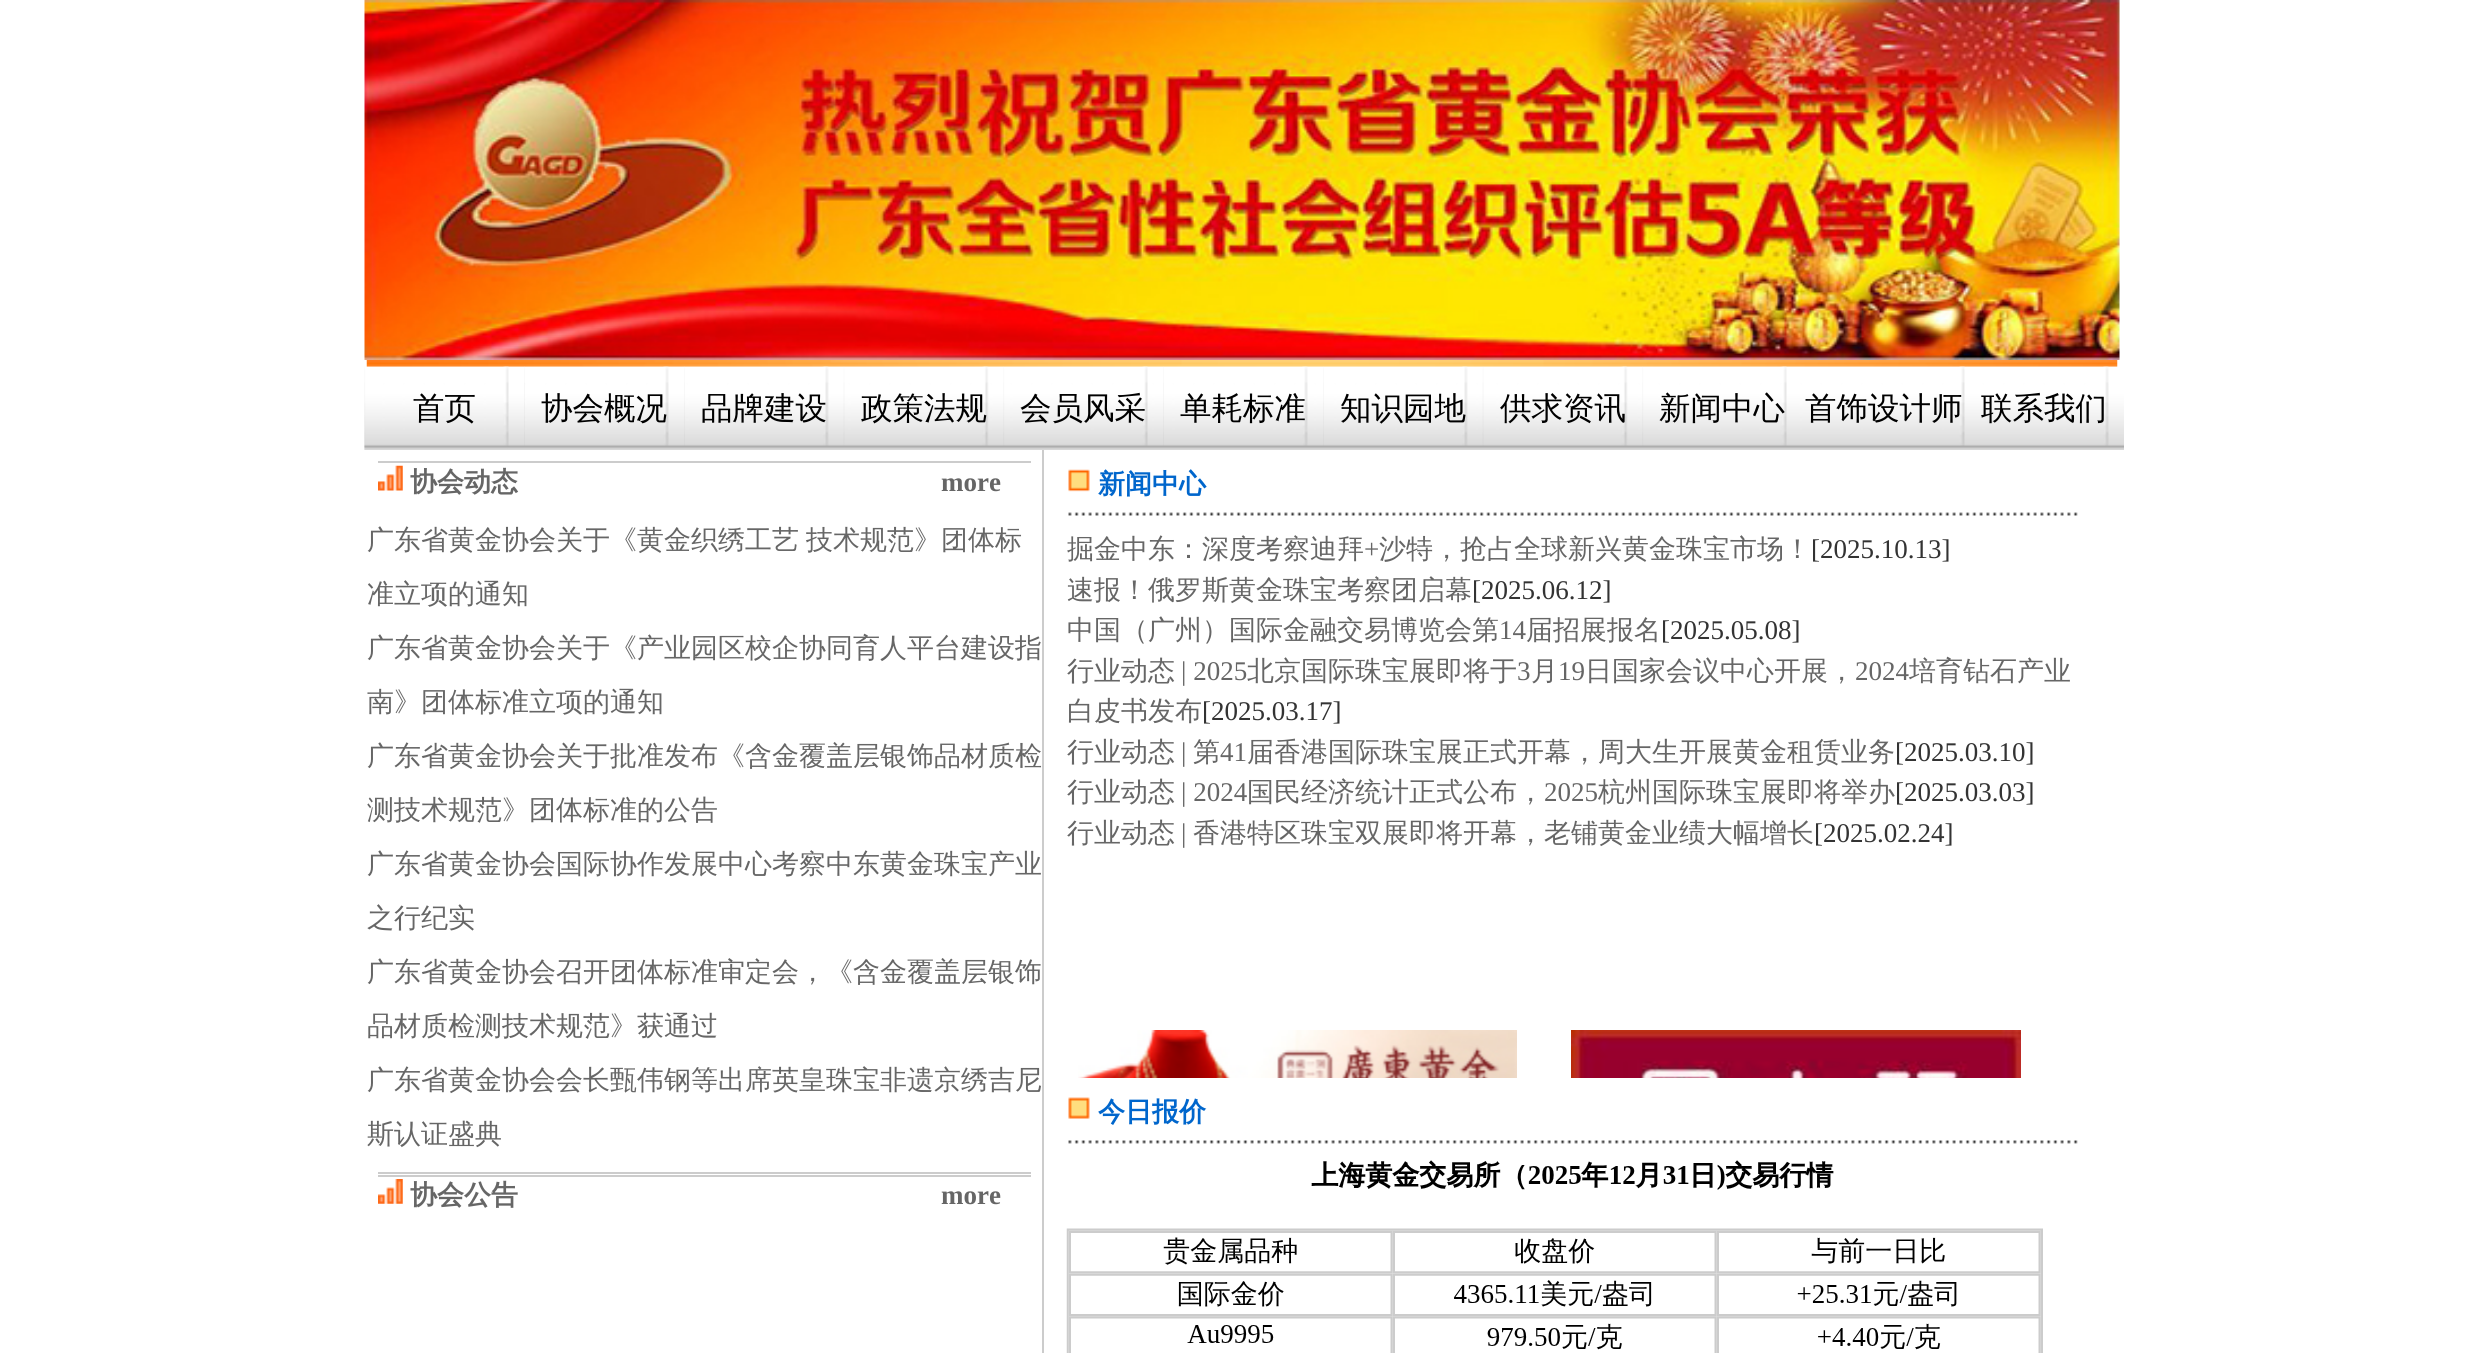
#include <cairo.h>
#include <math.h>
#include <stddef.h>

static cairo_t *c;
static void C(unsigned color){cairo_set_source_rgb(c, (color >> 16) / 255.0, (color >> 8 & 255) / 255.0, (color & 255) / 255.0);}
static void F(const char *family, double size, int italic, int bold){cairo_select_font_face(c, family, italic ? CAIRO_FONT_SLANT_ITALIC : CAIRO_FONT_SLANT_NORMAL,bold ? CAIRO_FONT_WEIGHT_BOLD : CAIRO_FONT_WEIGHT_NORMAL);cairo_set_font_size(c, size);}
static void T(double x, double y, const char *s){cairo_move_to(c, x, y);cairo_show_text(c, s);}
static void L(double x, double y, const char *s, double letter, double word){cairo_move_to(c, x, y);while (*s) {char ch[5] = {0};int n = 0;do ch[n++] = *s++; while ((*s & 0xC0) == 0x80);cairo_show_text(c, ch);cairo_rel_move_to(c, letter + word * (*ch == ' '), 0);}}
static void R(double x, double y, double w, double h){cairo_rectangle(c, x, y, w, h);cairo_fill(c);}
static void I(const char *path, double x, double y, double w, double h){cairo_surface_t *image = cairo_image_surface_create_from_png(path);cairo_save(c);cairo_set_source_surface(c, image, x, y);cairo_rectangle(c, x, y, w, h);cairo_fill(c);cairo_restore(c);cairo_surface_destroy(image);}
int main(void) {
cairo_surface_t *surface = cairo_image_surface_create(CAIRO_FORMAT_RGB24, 2483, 1353);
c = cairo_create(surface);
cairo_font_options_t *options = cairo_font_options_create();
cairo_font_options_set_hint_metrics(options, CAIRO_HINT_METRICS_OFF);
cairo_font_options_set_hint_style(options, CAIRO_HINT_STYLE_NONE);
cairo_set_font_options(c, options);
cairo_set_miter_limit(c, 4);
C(0xffffff);
cairo_paint(c);
I("1.png",364,0,1756,360);
I("2.png",366,360,1752,7);
I("3.png",364,366,1760,84);
I("4.png",364,366,145,84);
F("WenQuanYi Zen Hei Medium",31.5,0,0);
C(0x000000);
T(413,419,"首页");
I("5.png",524,366,145,80);
T(541,419,"协会概况");
I("6.png",684,366,145,80);
T(701,419,"品牌建设");
I("7.png",843,366,146,80);
T(861,419,"政策法规");
I("8.png",1003,366,145,80);
T(1020,419,"会员风采");
I("9.png",1163,366,145,80);
T(1180,419,"单耗标准");
I("10.png",1323,366,145,80);
T(1340,419,"知识园地");
I("11.png",1482,366,146,80);
T(1500,419,"供求资讯");
I("12.png",1642,366,145,80);
T(1659,419,"新闻中心");
I("13.png",1959,366,6,80);
T(1805,419,"首饰设计师");
I("14.png",1964,366,145,80);
T(1981,419,"联系我们");
C(0xcccccc);
R(378,461,653,2);
I("15.png",378,465,25,26);
F("WenQuanYi Zen Hei",27,0,1);
C(0x666666);
T(410,491,"协会动态");
F("Liberation Serif",27,0,1);
T(941,491,"more");
F("WenQuanYi Zen Hei Medium",27,0,0);
L(367,549,"广东省黄金协会关于《黄金织绣工艺 技术规范》团体标",0,-1);
T(367,603,"准立项的通知");
T(367,657,"广东省黄金协会关于《产业园区校企协同育人平台建设指");
T(367,711,"南》团体标准立项的通知");
T(367,765,"广东省黄金协会关于批准发布《含金覆盖层银饰品材质检");
T(367,819,"测技术规范》团体标准的公告");
T(367,873,"广东省黄金协会国际协作发展中心考察中东黄金珠宝产业");
T(367,927,"之行纪实");
T(367,981,"广东省黄金协会召开团体标准审定会，《含金覆盖层银饰");
T(367,1035,"品材质检测技术规范》获通过");
T(367,1089,"广东省黄金协会会长甄伟钢等出席英皇珠宝非遗京绣吉尼");
T(367,1143,"斯认证盛典");
C(0xcccccc);
R(378,1172,653,2);
R(378,1175,653,2);
I("16.png",378,1179,25,25);
F("WenQuanYi Zen Hei",27,0,1);
C(0x666666);
T(410,1204,"协会公告");
F("Liberation Serif",27,0,1);
T(941,1204,"more");
C(0xcccccc);
R(1042,450,2,903);
I("17.png",1068,512,1010,4);
I("18.png",1068,469,22,23);
F("WenQuanYi Zen Hei",27,0,1);
C(0x0066cc);
T(1098,493,"新闻中心");
F("WenQuanYi Zen Hei Medium",27,0,0);
C(0x666666);
T(1067,558,"掘金中东：深度考察迪拜");
F("Liberation Serif",27,0,0);
T(1364,558,"+");
F("WenQuanYi Zen Hei Medium",27,0,0);
T(1379,558,"沙特，抢占全球新兴黄金珠宝市场！");
F("Liberation Serif",27,0,0);
C(0x333333);
T(1811,558,"[2025.10.13]");
F("WenQuanYi Zen Hei Medium",27,0,0);
C(0x666666);
T(1067,599,"速报！俄罗斯黄金珠宝考察团启幕");
F("Liberation Serif",27,0,0);
C(0x333333);
T(1472,599,"[2025.06.12]");
F("WenQuanYi Zen Hei Medium",27,0,0);
C(0x666666);
T(1067,639,"中国（广州）国际金融交易博览会第");
F("Liberation Serif",27,0,0);
T(1499,639,"14");
F("WenQuanYi Zen Hei Medium",27,0,0);
T(1526,639,"届招展报名");
F("Liberation Serif",27,0,0);
C(0x333333);
T(1661,639,"[2025.05.08]");
F("WenQuanYi Zen Hei Medium",27,0,0);
C(0x666666);
T(1067,680,"行业动态");
F("Liberation Serif",27,0,0);
T(1181,680,"| 2025");
F("WenQuanYi Zen Hei Medium",27,0,0);
T(1247,680,"北京国际珠宝展即将于");
F("Liberation Serif",27,0,0);
T(1517,680,"3");
F("WenQuanYi Zen Hei Medium",27,0,0);
T(1531,680,"月");
F("Liberation Serif",27,0,0);
T(1558,680,"19");
F("WenQuanYi Zen Hei Medium",27,0,0);
T(1585,680,"日国家会议中心开展，");
F("Liberation Serif",27,0,0);
T(1855,680,"2024");
F("WenQuanYi Zen Hei Medium",27,0,0);
T(1909,680,"培育钻石产业");
T(1067,720,"白皮书发布");
F("Liberation Serif",27,0,0);
C(0x333333);
T(1202,720,"[2025.03.17]");
F("WenQuanYi Zen Hei Medium",27,0,0);
C(0x666666);
T(1067,761,"行业动态");
F("Liberation Serif",27,0,0);
T(1181,761,"|");
F("WenQuanYi Zen Hei Medium",27,0,0);
T(1193,761,"第");
F("Liberation Serif",27,0,0);
T(1220,761,"41");
F("WenQuanYi Zen Hei Medium",27,0,0);
T(1247,761,"届香港国际珠宝展正式开幕，周大生开展黄金租赁业务");
F("Liberation Serif",27,0,0);
C(0x333333);
T(1895,761,"[2025.03.10]");
F("WenQuanYi Zen Hei Medium",27,0,0);
C(0x666666);
T(1067,801,"行业动态");
F("Liberation Serif",27,0,0);
T(1181,801,"| 2024");
F("WenQuanYi Zen Hei Medium",27,0,0);
T(1247,801,"国民经济统计正式公布，");
F("Liberation Serif",27,0,0);
T(1544,801,"2025");
F("WenQuanYi Zen Hei Medium",27,0,0);
T(1598,801,"杭州国际珠宝展即将举办");
F("Liberation Serif",27,0,0);
C(0x333333);
T(1895,801,"[2025.03.03]");
F("WenQuanYi Zen Hei Medium",27,0,0);
C(0x666666);
T(1067,842,"行业动态");
F("Liberation Serif",27,0,0);
T(1181,842,"|");
F("WenQuanYi Zen Hei Medium",27,0,0);
T(1193,842,"香港特区珠宝双展即将开幕，老铺黄金业绩大幅增长");
F("Liberation Serif",27,0,0);
C(0x333333);
T(1814,842,"[2025.02.24]");
I("19.png",1078,1030,439,48);
I("20.png",1571,1030,450,48);
I("21.png",1068,1140,1010,4);
I("22.png",1068,1097,22,22);
F("WenQuanYi Zen Hei",27,0,1);
C(0x0066cc);
T(1098,1121,"今日报价");
I("23.png",1066,1160,977,193);
cairo_surface_write_to_png(surface, "o.png");
cairo_font_options_destroy(options);
cairo_destroy(c);
cairo_surface_destroy(surface);
return 0;
}
